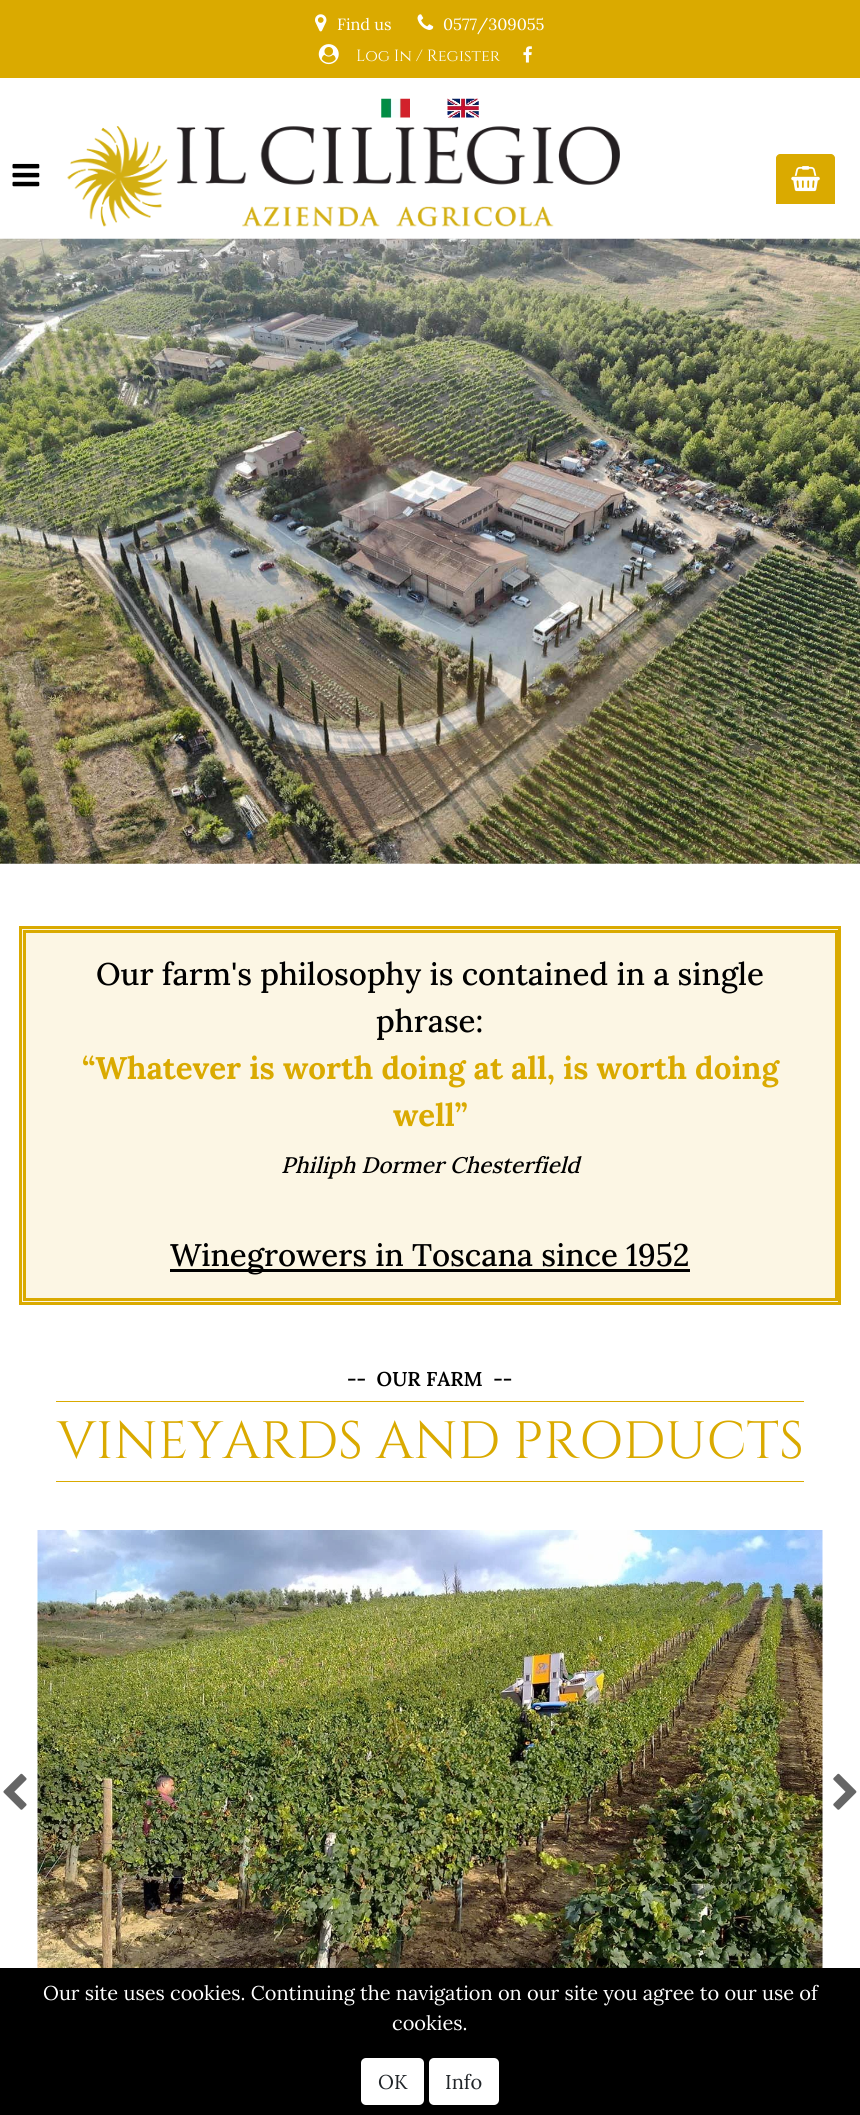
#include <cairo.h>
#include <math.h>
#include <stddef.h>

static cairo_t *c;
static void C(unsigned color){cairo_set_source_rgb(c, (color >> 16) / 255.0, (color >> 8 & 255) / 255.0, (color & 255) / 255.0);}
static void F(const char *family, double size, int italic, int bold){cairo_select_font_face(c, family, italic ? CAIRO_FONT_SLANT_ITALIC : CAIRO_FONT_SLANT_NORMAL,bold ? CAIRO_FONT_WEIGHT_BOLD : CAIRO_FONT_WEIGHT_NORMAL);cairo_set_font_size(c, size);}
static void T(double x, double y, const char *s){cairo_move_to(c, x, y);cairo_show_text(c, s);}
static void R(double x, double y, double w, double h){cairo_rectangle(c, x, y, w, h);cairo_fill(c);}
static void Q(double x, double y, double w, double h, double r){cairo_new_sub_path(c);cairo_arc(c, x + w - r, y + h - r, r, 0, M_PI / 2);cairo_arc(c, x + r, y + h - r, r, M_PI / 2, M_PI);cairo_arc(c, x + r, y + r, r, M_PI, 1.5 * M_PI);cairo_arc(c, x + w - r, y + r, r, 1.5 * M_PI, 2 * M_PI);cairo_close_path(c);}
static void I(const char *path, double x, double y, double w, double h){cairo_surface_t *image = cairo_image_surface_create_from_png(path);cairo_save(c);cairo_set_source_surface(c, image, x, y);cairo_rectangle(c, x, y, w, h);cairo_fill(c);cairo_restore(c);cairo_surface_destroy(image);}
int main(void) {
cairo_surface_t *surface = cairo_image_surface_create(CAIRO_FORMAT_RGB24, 860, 2115);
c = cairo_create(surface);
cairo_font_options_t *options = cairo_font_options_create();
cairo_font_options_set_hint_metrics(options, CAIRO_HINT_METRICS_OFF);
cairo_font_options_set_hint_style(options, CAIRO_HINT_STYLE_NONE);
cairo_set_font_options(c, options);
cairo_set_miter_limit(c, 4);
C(0xffffff);
cairo_paint(c);
C(0xdaaa00);
R(0,0,860,78);
I("1.png",315,14,12,18);
F("Lora",16.25,0,0);
C(0xffffff);
T(337,30,"Find us");
I("2.png",417,14,17,16);
T(443,30,"0577/309055");
I("3.png",318,44,21,21);
F("Cinzel",16.25,0,0);
T(356,61,"Log In / Register");
I("4.png",523,46,9,17);
I("5.png",381,98,29,20);
I("6.png",447,98,32,20);
I("7.png",12,163,28,24);
I("8.png",67,126,553,101);
C(0xdaaa00);
cairo_new_path(c);
cairo_move_to(c,780,154);
cairo_line_to(c,831,154);
cairo_curve_to(c,833,154,835,156,835,158);
cairo_line_to(c,835,204);
cairo_line_to(c,776,204);
cairo_line_to(c,776,158);
cairo_curve_to(c,776,156,778,154,780,154);
cairo_close_path(c);
cairo_fill(c);
I("9.png",791,166,29,26);
I("10.png",0,238,860,626);
C(0xfcf6e4);
cairo_rectangle(c,20.5,927.5,819,376);
cairo_fill_preserve(c);
C(0xdaaa00);
cairo_set_line_width(c,3);
cairo_stroke(c);
cairo_rectangle(c,24.5,931.5,812,368);
cairo_stroke(c);
F("Lora Medium",31.25,0,0);
C(0x000000);
T(96,985,"Our farm's philosophy is contained in a single");
T(376,1032,"phrase:");
F("Lora",31.25,0,1);
C(0xdaaa00);
T(82,1079,"“Whatever is worth doing at all, is worth doing");
T(393,1126,"well”");
F("Lora Medium",22.5,1,0);
C(0x000000);
T(281,1173,"Philiph Dormer Chesterfield");
R(170,1269,520,3);
F("Lora Medium",31.25,0,0);
T(170,1266,"Winegrowers in Toscana since 1952");
F("Lora SemiBold",20,0,0);
T(347,1386,"--  OUR FARM  --");
C(0xdaaa00);
R(56,1401,748,1);
R(56,1481,748,1);
F("Cinzel",52.5,0,0);
T(57,1458,"VINEYARDS AND PRODUCTS");
I("11.png",3,1773,24,37);
I("12.png",37,1530,786,438);
I("13.png",833,1773,24,37);
C(0x000000);
R(0,1968,860,147);
F("Lora",20,0,0);
C(0xffffff);
T(43,2000,"Our site uses cookies. Continuing the navigation on our site you agree to our use of");
T(392,2030,"cookies.");
Q(361,2058,63,47,5);
cairo_fill(c);
C(0x212529);
T(378,2089,"OK");
C(0xffffff);
Q(429,2058,70,47,5);
cairo_fill(c);
C(0x212529);
T(445,2089,"Info");
cairo_surface_write_to_png(surface, "o.png");
cairo_font_options_destroy(options);
cairo_destroy(c);
cairo_surface_destroy(surface);
return 0;
}
